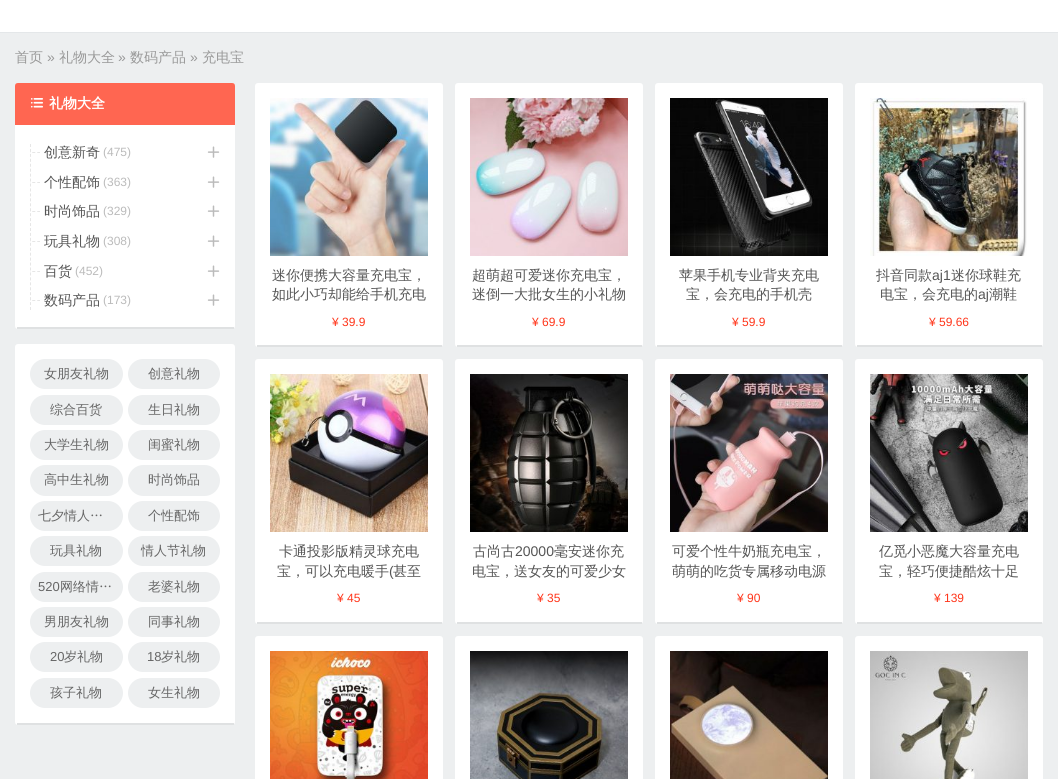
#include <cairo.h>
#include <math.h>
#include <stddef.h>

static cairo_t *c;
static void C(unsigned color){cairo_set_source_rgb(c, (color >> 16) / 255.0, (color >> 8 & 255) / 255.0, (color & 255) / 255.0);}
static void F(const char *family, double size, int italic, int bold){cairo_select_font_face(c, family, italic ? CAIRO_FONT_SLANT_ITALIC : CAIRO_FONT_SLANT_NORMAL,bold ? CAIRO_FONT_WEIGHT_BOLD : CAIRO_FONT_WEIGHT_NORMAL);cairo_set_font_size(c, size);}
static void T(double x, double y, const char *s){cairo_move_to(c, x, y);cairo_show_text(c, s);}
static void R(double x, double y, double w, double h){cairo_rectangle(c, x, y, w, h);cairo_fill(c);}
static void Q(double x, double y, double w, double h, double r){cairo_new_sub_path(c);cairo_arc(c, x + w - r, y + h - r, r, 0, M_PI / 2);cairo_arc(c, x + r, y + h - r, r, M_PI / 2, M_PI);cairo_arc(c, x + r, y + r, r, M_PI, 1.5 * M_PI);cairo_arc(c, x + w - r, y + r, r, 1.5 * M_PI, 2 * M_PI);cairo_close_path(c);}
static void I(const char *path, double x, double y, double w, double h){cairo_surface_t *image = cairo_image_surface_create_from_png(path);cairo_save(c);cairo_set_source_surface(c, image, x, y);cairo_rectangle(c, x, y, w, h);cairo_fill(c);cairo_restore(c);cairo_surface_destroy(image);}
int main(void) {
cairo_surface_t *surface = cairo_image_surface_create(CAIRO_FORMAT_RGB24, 1058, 779);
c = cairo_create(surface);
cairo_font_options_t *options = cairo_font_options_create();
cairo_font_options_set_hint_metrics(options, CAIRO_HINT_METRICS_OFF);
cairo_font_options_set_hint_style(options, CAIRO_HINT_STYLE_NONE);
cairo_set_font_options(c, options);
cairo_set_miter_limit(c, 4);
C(0xedeff0);
cairo_paint(c);
C(0xffffff);
R(0,0,1058,32);
C(0xe4e7e9);
R(0,32,1058,1);
F("WenQuanYi Zen Hei Medium",14,0,0);
C(0x999999);
T(15,62,"首页");
F("Liberation Sans",14,0,0);
T(47,62,"»");
F("WenQuanYi Zen Hei Medium",14,0,0);
T(59,62,"礼物大全");
F("Liberation Sans",14,0,0);
T(118,62,"»");
F("WenQuanYi Zen Hei Medium",14,0,0);
T(130,62,"数码产品");
F("Liberation Sans",14,0,0);
T(190,62,"»");
F("WenQuanYi Zen Hei Medium",14,0,0);
T(202,62,"充电宝");
C(0xffffff);
Q(15,83,220,246,3);
cairo_fill(c);
C(0xdfe1e2);
R(17,327,217,2);
C(0xff6651);
cairo_new_path(c);
cairo_move_to(c,18,83);
cairo_curve_to(c,16,83,15,84,15,86);
cairo_line_to(c,15,125);
cairo_line_to(c,235,125);
cairo_line_to(c,235,86);
cairo_curve_to(c,235,84,234,83,232,83);
cairo_close_path(c);
cairo_fill(c);
I("1.png",31,98,12,10);
F("WenQuanYi Zen Hei",14,0,1);
C(0xffffff);
T(49,108,"礼物大全");
cairo_new_path(c);
cairo_move_to(c,30.5,144);
cairo_line_to(c,30.5,310);
C(0xe6e6e6);
cairo_set_line_width(c,1);
cairo_set_dash(c,(double[]){3,1.94},2,0);
cairo_stroke(c);
cairo_save(c);
cairo_rectangle(c,30,132,190,188);
cairo_clip(c);
cairo_new_path(c);
cairo_move_to(c,-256,152.5);
cairo_line_to(c,40,152.5);
cairo_set_dash(c,(double[]){3,1.97},2,0);
cairo_stroke(c);
cairo_restore(c);
F("WenQuanYi Zen Hei Medium",14,0,0);
C(0x555555);
T(44,157,"创意新奇");
F("Liberation Sans",12,0,0);
C(0xbbbbbb);
T(103,156,"(475)");
I("2.png",207,146,13,12);
cairo_save(c);
cairo_rectangle(c,30,132,190,188);
cairo_clip(c);
cairo_new_path(c);
cairo_move_to(c,-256,182.5);
cairo_line_to(c,40,182.5);
C(0xe6e6e6);
cairo_set_dash(c,(double[]){3,1.97},2,0);
cairo_stroke(c);
cairo_restore(c);
F("WenQuanYi Zen Hei Medium",14,0,0);
C(0x555555);
T(44,187,"个性配饰");
F("Liberation Sans",12,0,0);
C(0xbbbbbb);
T(103,186,"(363)");
I("2.png",207,176,13,12);
cairo_save(c);
cairo_rectangle(c,30,132,190,188);
cairo_clip(c);
cairo_new_path(c);
cairo_move_to(c,-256,211.5);
cairo_line_to(c,40,211.5);
C(0xe6e6e6);
cairo_set_dash(c,(double[]){3,1.97},2,0);
cairo_stroke(c);
cairo_restore(c);
F("WenQuanYi Zen Hei Medium",14,0,0);
C(0x555555);
T(44,216,"时尚饰品");
F("Liberation Sans",12,0,0);
C(0xbbbbbb);
T(103,215,"(329)");
I("2.png",207,205,13,12);
cairo_save(c);
cairo_rectangle(c,30,132,190,188);
cairo_clip(c);
cairo_new_path(c);
cairo_move_to(c,-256,241.5);
cairo_line_to(c,40,241.5);
C(0xe6e6e6);
cairo_set_dash(c,(double[]){3,1.97},2,0);
cairo_stroke(c);
cairo_restore(c);
F("WenQuanYi Zen Hei Medium",14,0,0);
C(0x555555);
T(44,246,"玩具礼物");
F("Liberation Sans",12,0,0);
C(0xbbbbbb);
T(103,245,"(308)");
I("2.png",207,235,13,12);
cairo_save(c);
cairo_rectangle(c,30,132,190,188);
cairo_clip(c);
cairo_new_path(c);
cairo_move_to(c,-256,271.5);
cairo_line_to(c,40,271.5);
C(0xe6e6e6);
cairo_set_dash(c,(double[]){3,1.97},2,0);
cairo_stroke(c);
cairo_restore(c);
F("WenQuanYi Zen Hei Medium",14,0,0);
C(0x555555);
T(44,276,"百货");
F("Liberation Sans",12,0,0);
C(0xbbbbbb);
T(75,275,"(452)");
I("2.png",207,265,13,12);
cairo_save(c);
cairo_rectangle(c,30,132,190,188);
cairo_clip(c);
cairo_new_path(c);
cairo_move_to(c,-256,300.5);
cairo_line_to(c,40,300.5);
C(0xe6e6e6);
cairo_set_dash(c,(double[]){3,1.97},2,0);
cairo_stroke(c);
cairo_restore(c);
F("WenQuanYi Zen Hei Medium",14,0,0);
C(0x555555);
T(44,305,"数码产品");
F("Liberation Sans",12,0,0);
C(0xbbbbbb);
T(103,304,"(173)");
I("2.png",207,294,13,12);
C(0xffffff);
Q(15,344,220,381,3);
cairo_fill(c);
C(0xdfe1e2);
R(17,723,217,2);
C(0xedeff0);
Q(30,359,93,30,15);
cairo_fill(c);
F("WenQuanYi Zen Hei Medium",13,0,0);
C(0x666666);
T(44,378,"女朋友礼物");
C(0xedeff0);
Q(128,359,92,30,15);
cairo_fill(c);
C(0x666666);
T(148,378,"创意礼物");
C(0xedeff0);
Q(30,395,93,30,15);
cairo_fill(c);
C(0x666666);
T(50,414,"综合百货");
C(0xedeff0);
Q(128,395,92,30,15);
cairo_fill(c);
C(0x666666);
T(148,414,"生日礼物");
C(0xedeff0);
Q(30,430,93,30,15);
cairo_fill(c);
C(0x666666);
T(44,449,"大学生礼物");
C(0xedeff0);
Q(128,430,92,30,15);
cairo_fill(c);
C(0x666666);
T(148,449,"闺蜜礼物");
C(0xedeff0);
Q(30,465,93,31,15.5);
cairo_fill(c);
C(0x666666);
T(44,484,"高中生礼物");
C(0xedeff0);
Q(128,465,92,31,15.5);
cairo_fill(c);
C(0x666666);
T(148,484,"时尚饰品");
C(0xedeff0);
Q(30,501,93,30,15);
cairo_fill(c);
C(0x666666);
T(38,520,"七夕情人…");
C(0xedeff0);
Q(128,501,92,30,15);
cairo_fill(c);
C(0x666666);
T(148,520,"个性配饰");
C(0xedeff0);
Q(30,536,93,30,15);
cairo_fill(c);
C(0x666666);
T(50,555,"玩具礼物");
C(0xedeff0);
Q(128,536,92,30,15);
cairo_fill(c);
C(0x666666);
T(141,555,"情人节礼物");
C(0xedeff0);
Q(30,572,93,30,15);
cairo_fill(c);
F("Liberation Sans",13,0,0);
C(0x666666);
T(38,591,"520");
F("WenQuanYi Zen Hei Medium",13,0,0);
T(60,591,"网络情…");
C(0xedeff0);
Q(128,572,92,30,15);
cairo_fill(c);
C(0x666666);
T(148,591,"老婆礼物");
C(0xedeff0);
Q(30,607,93,30,15);
cairo_fill(c);
C(0x666666);
T(44,626,"男朋友礼物");
C(0xedeff0);
Q(128,607,92,30,15);
cairo_fill(c);
C(0x666666);
T(148,626,"同事礼物");
C(0xedeff0);
Q(30,642,93,30,15);
cairo_fill(c);
F("Liberation Sans",13,0,0);
C(0x666666);
T(50,661,"20");
F("WenQuanYi Zen Hei Medium",13,0,0);
T(64,661,"岁礼物");
C(0xedeff0);
Q(128,642,92,30,15);
cairo_fill(c);
F("Liberation Sans",13,0,0);
C(0x666666);
T(147,661,"18");
F("WenQuanYi Zen Hei Medium",13,0,0);
T(161,661,"岁礼物");
C(0xedeff0);
Q(30,678,93,30,15);
cairo_fill(c);
C(0x666666);
T(50,697,"孩子礼物");
C(0xedeff0);
Q(128,678,92,30,15);
cairo_fill(c);
C(0x666666);
T(148,697,"女生礼物");
C(0xffffff);
Q(255,83,188,264,3);
cairo_fill(c);
C(0xdfe1e2);
R(257,345,185,2);
I("3.png",270,98,158,158);
F("WenQuanYi Zen Hei Medium",14,0,0);
C(0x555555);
T(272,280,"迷你便携大容量充电宝，");
T(272,299,"如此小巧却能给手机充电");
F("Liberation Sans",12,0,0);
C(0xff351a);
T(332,326,"¥ 39.9");
C(0xffffff);
Q(455,83,188,264,3);
cairo_fill(c);
C(0xdfe1e2);
R(457,345,185,2);
I("4.png",470,98,158,158);
F("WenQuanYi Zen Hei Medium",14,0,0);
C(0x555555);
T(472,280,"超萌超可爱迷你充电宝，");
T(472,299,"迷倒一大批女生的小礼物");
F("Liberation Sans",12,0,0);
C(0xff351a);
T(532,326,"¥ 69.9");
C(0xffffff);
Q(655,83,188,264,3);
cairo_fill(c);
C(0xdfe1e2);
R(657,345,185,2);
I("5.png",670,98,158,158);
F("WenQuanYi Zen Hei Medium",14,0,0);
C(0x555555);
T(679,280,"苹果手机专业背夹充电");
T(686,299,"宝，会充电的手机壳");
F("Liberation Sans",12,0,0);
C(0xff351a);
T(732,326,"¥ 59.9");
C(0xffffff);
Q(855,83,188,264,3);
cairo_fill(c);
C(0xdfe1e2);
R(857,345,185,2);
I("6.png",870,98,157,158);
F("WenQuanYi Zen Hei Medium",14,0,0);
C(0x555555);
T(876,280,"抖音同款");
F("Liberation Sans",14,0,0);
T(932,280,"aj1");
F("WenQuanYi Zen Hei Medium",14,0,0);
T(951,280,"迷你球鞋充");
T(880,299,"电宝，会充电的");
F("Liberation Sans",14,0,0);
T(978,299,"aj");
F("WenQuanYi Zen Hei Medium",14,0,0);
T(989,299,"潮鞋");
F("Liberation Sans",12,0,0);
C(0xff351a);
T(929,326,"¥ 59.66");
C(0xffffff);
Q(255,359,188,265,3);
cairo_fill(c);
C(0xdfe1e2);
R(257,622,185,2);
I("7.png",270,374,158,158);
F("WenQuanYi Zen Hei Medium",14,0,0);
C(0x555555);
T(279,556,"卡通投影版精灵球充电");
T(277,576,"宝，可以充电暖手");
F("Liberation Sans",14,0,0);
T(389,576,"(");
F("WenQuanYi Zen Hei Medium",14,0,0);
T(393,576,"甚至");
F("Liberation Sans",12,0,0);
C(0xff351a);
T(337,602,"¥ 45");
C(0xffffff);
Q(455,359,188,265,3);
cairo_fill(c);
C(0xdfe1e2);
R(457,622,185,2);
I("8.png",470,374,158,158);
F("WenQuanYi Zen Hei Medium",14,0,0);
C(0x555555);
T(473,556,"古尚古");
F("Liberation Sans",14,0,0);
T(515,556,"20000");
F("WenQuanYi Zen Hei Medium",14,0,0);
T(554,556,"毫安迷你充");
T(472,576,"电宝，送女友的可爱少女");
F("Liberation Sans",12,0,0);
C(0xff351a);
T(537,602,"¥ 35");
C(0xffffff);
Q(655,359,188,265,3);
cairo_fill(c);
C(0xdfe1e2);
R(657,622,185,2);
I("9.png",670,374,158,158);
F("WenQuanYi Zen Hei Medium",14,0,0);
C(0x555555);
T(672,556,"可爱个性牛奶瓶充电宝，");
T(672,576,"萌萌的吃货专属移动电源");
F("Liberation Sans",12,0,0);
C(0xff351a);
T(737,602,"¥ 90");
C(0xffffff);
Q(855,359,188,265,3);
cairo_fill(c);
C(0xdfe1e2);
R(857,622,185,2);
I("10.png",870,374,158,158);
F("WenQuanYi Zen Hei Medium",14,0,0);
C(0x555555);
T(879,556,"亿觅小恶魔大容量充电");
T(879,576,"宝，轻巧便捷酷炫十足");
F("Liberation Sans",12,0,0);
C(0xff351a);
T(934,602,"¥ 139");
C(0xffffff);
Q(255,636,188,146,3);
cairo_fill(c);
I("11.png",270,651,158,128);
Q(455,636,188,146,3);
cairo_fill(c);
I("12.png",470,651,158,128);
Q(655,636,188,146,3);
cairo_fill(c);
I("13.png",670,651,158,128);
Q(855,636,188,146,3);
cairo_fill(c);
I("14.png",870,651,158,128);
cairo_surface_write_to_png(surface, "o.png");
cairo_font_options_destroy(options);
cairo_destroy(c);
cairo_surface_destroy(surface);
return 0;
}
